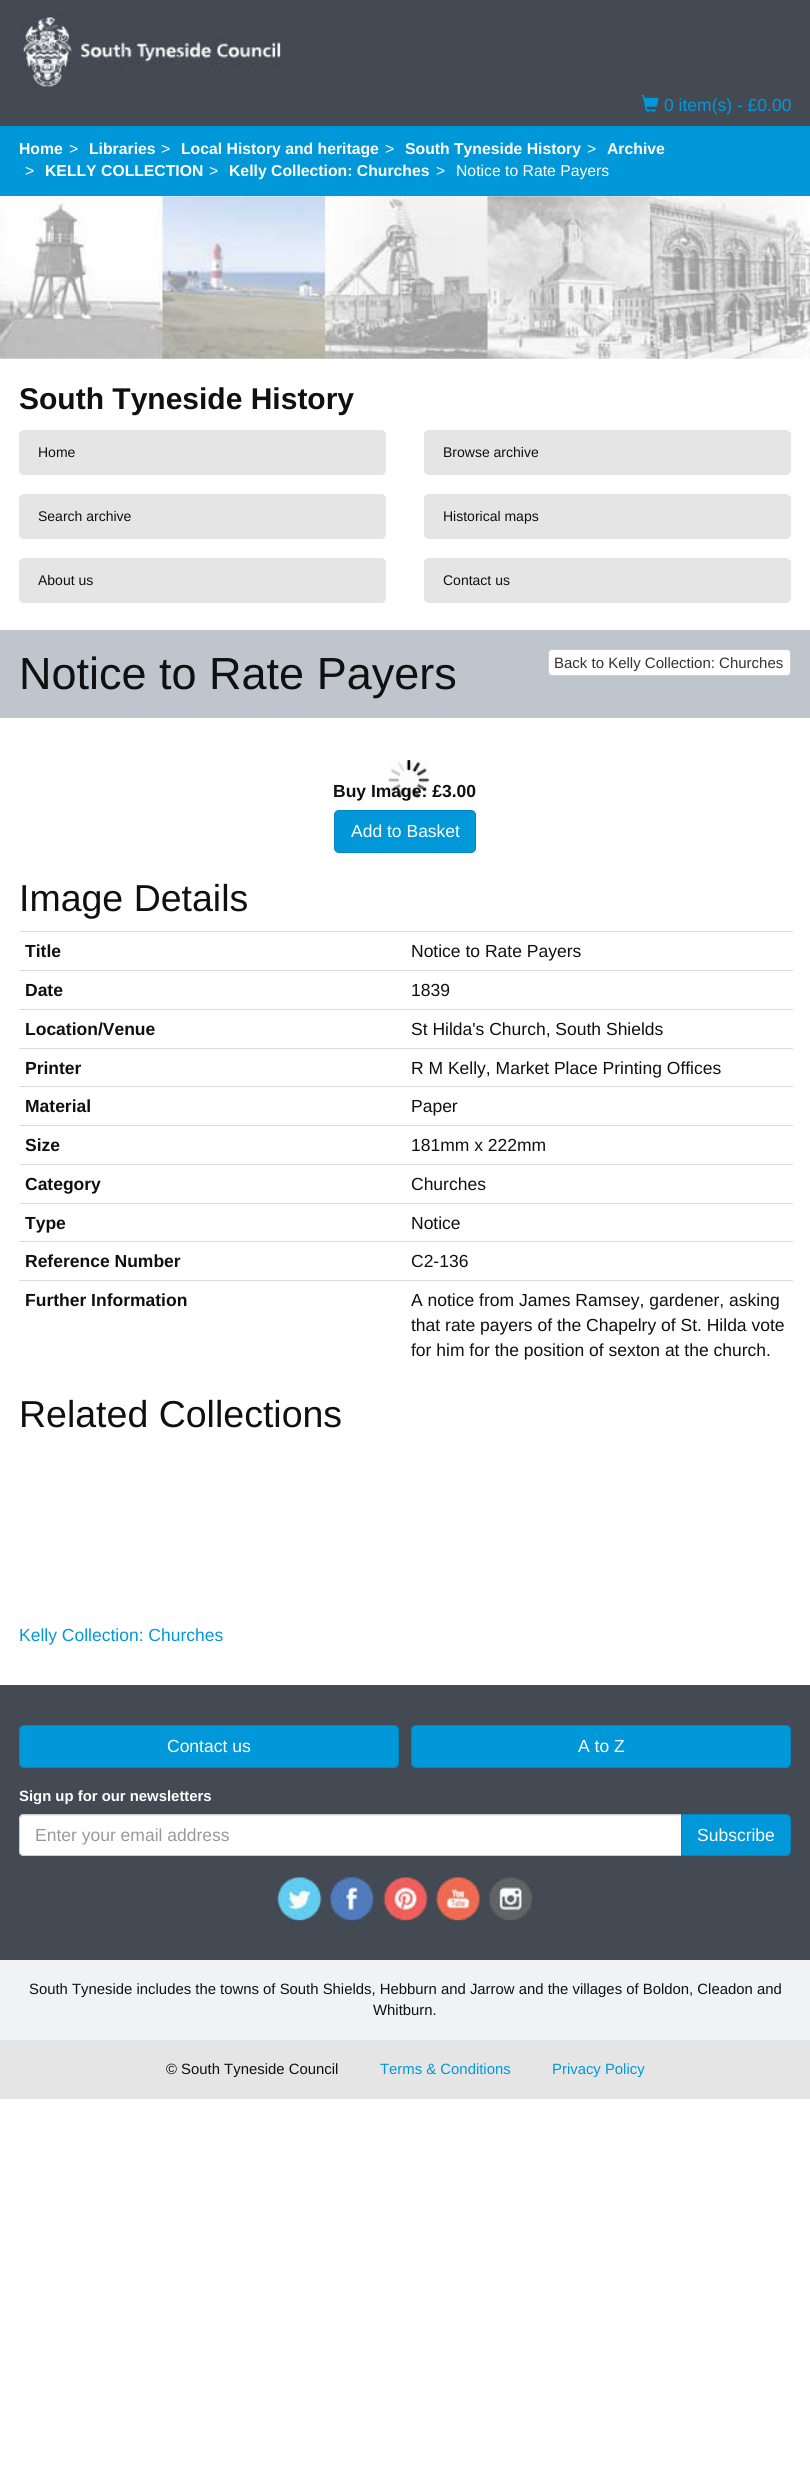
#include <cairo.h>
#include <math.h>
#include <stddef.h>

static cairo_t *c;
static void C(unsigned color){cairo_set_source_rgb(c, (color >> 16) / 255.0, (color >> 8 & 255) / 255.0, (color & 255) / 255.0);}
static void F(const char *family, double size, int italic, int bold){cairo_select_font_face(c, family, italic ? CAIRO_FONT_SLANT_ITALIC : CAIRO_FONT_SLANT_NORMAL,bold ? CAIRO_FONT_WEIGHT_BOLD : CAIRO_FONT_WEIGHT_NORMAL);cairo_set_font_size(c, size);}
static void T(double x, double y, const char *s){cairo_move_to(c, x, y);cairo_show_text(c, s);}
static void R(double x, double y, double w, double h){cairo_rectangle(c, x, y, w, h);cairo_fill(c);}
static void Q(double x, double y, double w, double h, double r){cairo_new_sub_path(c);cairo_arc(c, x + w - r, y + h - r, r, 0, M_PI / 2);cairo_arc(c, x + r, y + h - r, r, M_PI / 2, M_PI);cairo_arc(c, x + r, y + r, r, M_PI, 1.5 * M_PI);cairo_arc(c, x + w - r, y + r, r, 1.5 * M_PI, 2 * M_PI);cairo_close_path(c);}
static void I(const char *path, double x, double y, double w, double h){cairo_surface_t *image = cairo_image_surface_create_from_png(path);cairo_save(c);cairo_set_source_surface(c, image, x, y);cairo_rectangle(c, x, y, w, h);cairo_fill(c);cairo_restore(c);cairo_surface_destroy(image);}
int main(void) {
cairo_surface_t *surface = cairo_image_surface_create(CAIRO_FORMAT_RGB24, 810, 2465);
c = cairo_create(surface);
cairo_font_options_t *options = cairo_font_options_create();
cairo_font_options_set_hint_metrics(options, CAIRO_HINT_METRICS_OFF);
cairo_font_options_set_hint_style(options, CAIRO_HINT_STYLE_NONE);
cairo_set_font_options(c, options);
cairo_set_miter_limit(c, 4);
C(0xffffff);
cairo_paint(c);
C(0x434a54);
R(0,0,810,126);
I("1.png",21,15,260,78);
I("2.png",641,95,18,18);
F("Liberation Sans",17.5,0,0);
C(0x0098d9);
T(664,111,"0 item(s) - £0.00");
R(0,126,810,70);
F("Liberation Sans",15.75,0,1);
C(0xffffff);
T(19,154,"Home");
F("Liberation Sans",15.75,0,0);
T(69,154,">");
F("Liberation Sans",15.75,0,1);
T(89,154,"Libraries");
F("Liberation Sans",15.75,0,0);
T(161,154,">");
F("Liberation Sans",15.75,0,1);
T(181,154,"Local History and heritage");
F("Liberation Sans",15.75,0,0);
T(385,154,">");
F("Liberation Sans",15.75,0,1);
T(405,154,"South Tyneside History");
F("Liberation Sans",15.75,0,0);
T(587,154,">");
F("Liberation Sans",15.75,0,1);
T(607,154,"Archive");
F("Liberation Sans",15.75,0,0);
T(25,176,">");
F("Liberation Sans",15.75,0,1);
T(45,176,"KELLY COLLECTION");
F("Liberation Sans",15.75,0,0);
T(209,176,">");
F("Liberation Sans",15.75,0,1);
T(229,176,"Kelly Collection: Churches");
F("Liberation Sans",15.75,0,0);
T(436,176,">");
T(456,176,"Notice to Rate Payers");
I("3.png",0,196,810,163);
F("Liberation Sans",30,0,1);
C(0x101010);
T(19,409,"South Tyneside History");
C(0xe5e5e5);
Q(19,430,367,45,5);
cairo_fill(c);
F("Liberation Sans",14,0,0);
C(0x101010);
T(38,457,"Home");
C(0xe5e5e5);
Q(424,430,367,45,5);
cairo_fill(c);
C(0x101010);
T(443,457,"Browse archive");
C(0xe5e5e5);
Q(19,494,367,45,5);
cairo_fill(c);
C(0x101010);
T(38,521,"Search archive");
C(0xe5e5e5);
Q(424,494,367,45,5);
cairo_fill(c);
C(0x101010);
T(443,521,"Historical maps");
C(0xe5e5e5);
Q(19,558,367,45,5);
cairo_fill(c);
C(0x101010);
T(38,585,"About us");
C(0xe5e5e5);
Q(424,558,367,45,5);
cairo_fill(c);
C(0x101010);
T(443,585,"Contact us");
C(0xbec5cd);
R(0,630,810,88);
F("Liberation Sans",45,0,0);
C(0x101010);
T(19,689,"Notice to Rate Payers");
C(0xffffff);
Q(548.5,649.5,242,26,3.5);
cairo_fill_preserve(c);
C(0xcccccc);
cairo_set_line_width(c,1);
cairo_stroke(c);
F("Liberation Sans",15,0,0);
C(0x333333);
T(554,668,"Back to Kelly Collection: Churches");
F("Liberation Sans",17.5,0,1);
C(0x101010);
T(333,797,"Buy Image: £3.00");
I("4.png",388,760,41,40);
C(0x0098d9);
Q(334.5,810.5,141,42,4.5);
cairo_fill_preserve(c);
C(0x0086c0);
cairo_stroke(c);
F("Liberation Sans",17.5,0,0);
C(0xffffff);
T(351,837,"Add to Basket");
F("Liberation Sans",37.5,0,0);
C(0x101010);
T(19,911,"Image Details");
F("Liberation Sans",17.5,0,1);
T(25,957,"Title");
C(0xdddddd);
R(19,931,774,1);
F("Liberation Sans",17.5,0,0);
C(0x101010);
T(411,957,"Notice to Rate Payers");
F("Liberation Sans",17.5,0,1);
T(25,996,"Date");
C(0xdddddd);
R(19,970,774,1);
F("Liberation Sans",17.5,0,0);
C(0x101010);
T(411,996,"1839");
F("Liberation Sans",17.5,0,1);
T(25,1035,"Location/Venue");
C(0xdddddd);
R(19,1009,774,1);
F("Liberation Sans",17.5,0,0);
C(0x101010);
T(411,1035,"St Hilda's Church, South Shields");
F("Liberation Sans",17.5,0,1);
T(25,1074,"Printer");
C(0xdddddd);
R(19,1048,774,1);
F("Liberation Sans",17.5,0,0);
C(0x101010);
T(411,1074,"R M Kelly, Market Place Printing Offices");
F("Liberation Sans",17.5,0,1);
T(25,1112,"Material");
C(0xdddddd);
R(19,1086,774,1);
F("Liberation Sans",17.5,0,0);
C(0x101010);
T(411,1112,"Paper");
F("Liberation Sans",17.5,0,1);
T(25,1151,"Size");
C(0xdddddd);
R(19,1125,774,1);
F("Liberation Sans",17.5,0,0);
C(0x101010);
T(411,1151,"181mm x 222mm");
F("Liberation Sans",17.5,0,1);
T(25,1190,"Category");
C(0xdddddd);
R(19,1164,774,1);
F("Liberation Sans",17.5,0,0);
C(0x101010);
T(411,1190,"Churches");
F("Liberation Sans",17.5,0,1);
T(25,1229,"Type");
C(0xdddddd);
R(19,1203,774,1);
F("Liberation Sans",17.5,0,0);
C(0x101010);
T(411,1229,"Notice");
F("Liberation Sans",17.5,0,1);
T(25,1267,"Reference Number");
C(0xdddddd);
R(19,1241,774,1);
F("Liberation Sans",17.5,0,0);
C(0x101010);
T(411,1267,"C2-136");
F("Liberation Sans",17.5,0,1);
T(25,1306,"Further Information");
C(0xdddddd);
R(19,1280,774,1);
F("Liberation Sans",17.5,0,0);
C(0x101010);
T(411,1306,"A notice from James Ramsey, gardener, asking");
T(411,1331,"that rate payers of the Chapelry of St. Hilda vote");
T(411,1356,"for him for the position of sexton at the church.");
F("Liberation Sans",37.5,0,0);
T(19,1427,"Related Collections");
F("Liberation Sans",17.5,0,0);
C(0x0098d9);
T(19,1641,"Kelly Collection: Churches");
C(0x434a54);
R(0,1685,810,275);
C(0x0098d9);
Q(19.5,1725.5,379,42,4.5);
cairo_fill_preserve(c);
C(0x0086c0);
cairo_stroke(c);
C(0xffffff);
T(167,1752,"Contact us");
C(0x0098d9);
Q(411.5,1725.5,379,42,4.5);
cairo_fill_preserve(c);
C(0x0086c0);
cairo_stroke(c);
C(0xffffff);
T(578,1752,"A to Z");
F("Liberation Sans",14.88,0,1);
T(19,1801,"Sign up for our newsletters");
cairo_new_path(c);
cairo_move_to(c,24,1814);
cairo_line_to(c,683,1814);
cairo_line_to(c,683,1856);
cairo_line_to(c,24,1856);
cairo_curve_to(c,21,1856,19,1854,19,1851);
cairo_line_to(c,19,1819);
cairo_curve_to(c,19,1816,21,1814,24,1814);
cairo_close_path(c);
cairo_fill(c);
C(0xececec);
cairo_new_path(c);
cairo_move_to(c,24,1816);
cairo_line_to(c,681,1816);
cairo_line_to(c,681,1815);
cairo_line_to(c,24,1815);
cairo_curve_to(c,22,1815,20,1817,20,1819);
cairo_line_to(c,20,1820);
cairo_curve_to(c,20,1818,22,1816,24,1816);
cairo_close_path(c);
cairo_fill(c);
cairo_new_path(c);
cairo_move_to(c,24,1814.5);
cairo_line_to(c,682.5,1814.5);
cairo_line_to(c,682.5,1855.5);
cairo_line_to(c,24,1855.5);
cairo_curve_to(c,21.5,1855.5,19.5,1853.5,19.5,1851);
cairo_line_to(c,19.5,1819);
cairo_curve_to(c,19.5,1816.5,21.5,1814.5,24,1814.5);
cairo_close_path(c);
C(0xcccccc);
cairo_stroke(c);
F("Liberation Sans",17.5,0,0);
C(0x999999);
T(35,1841,"Enter your email address");
C(0x0098d9);
cairo_new_path(c);
cairo_move_to(c,681.5,1814.5);
cairo_line_to(c,786,1814.5);
cairo_curve_to(c,788.5,1814.5,790.5,1816.5,790.5,1819);
cairo_line_to(c,790.5,1851);
cairo_curve_to(c,790.5,1853.5,788.5,1855.5,786,1855.5);
cairo_line_to(c,681.5,1855.5);
cairo_close_path(c);
cairo_fill_preserve(c);
C(0x0086c0);
cairo_stroke(c);
C(0xffffff);
T(697,1841,"Subscribe");
I("5.png",275,1877,49,46);
I("6.png",327,1877,49,46);
I("7.png",381,1877,49,46);
I("8.png",435,1877,48,46);
I("9.png",488,1877,46,45);
C(0xf1f2f6);
R(0,1960,810,80);
F("Liberation Sans",14.88,0,0);
C(0x101010);
T(29,1994,"South Tyneside includes the towns of South Shields, Hebburn and Jarrow and the villages of Boldon, Cleadon and");
T(373,2015,"Whitburn.");
C(0xe5e5e5);
R(0,2040,810,59);
C(0x101010);
T(166,2074,"© South Tyneside Council");
C(0x0098d9);
T(380,2074,"Terms & Conditions");
T(552,2074,"Privacy Policy");
cairo_surface_write_to_png(surface, "o.png");
cairo_font_options_destroy(options);
cairo_destroy(c);
cairo_surface_destroy(surface);
return 0;
}
